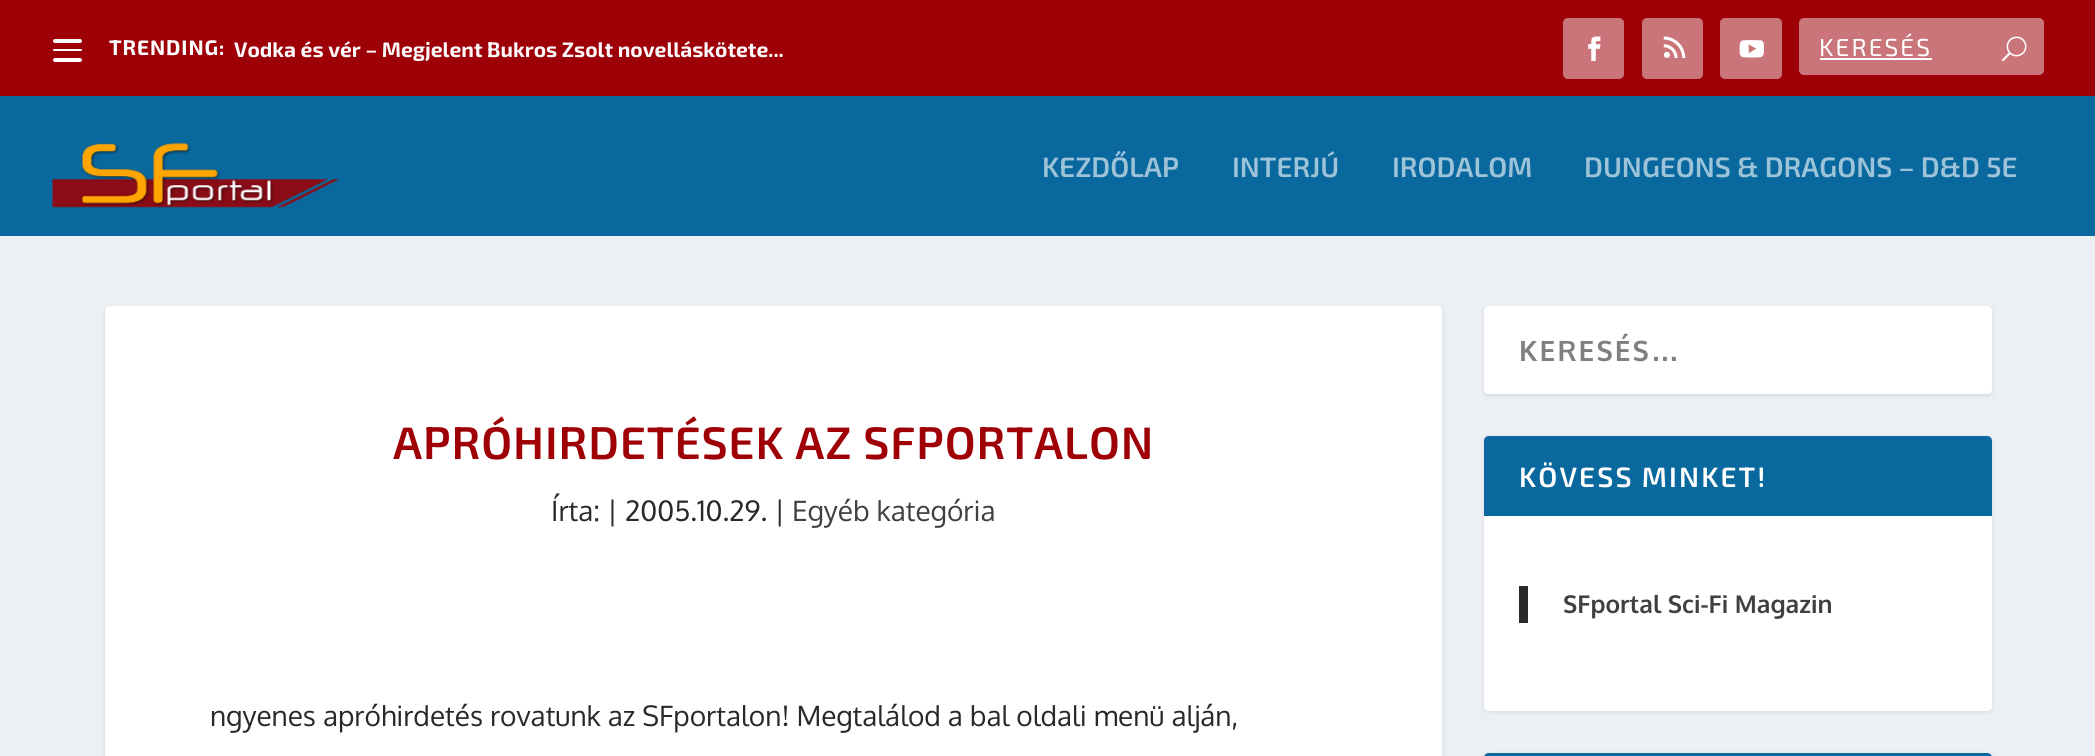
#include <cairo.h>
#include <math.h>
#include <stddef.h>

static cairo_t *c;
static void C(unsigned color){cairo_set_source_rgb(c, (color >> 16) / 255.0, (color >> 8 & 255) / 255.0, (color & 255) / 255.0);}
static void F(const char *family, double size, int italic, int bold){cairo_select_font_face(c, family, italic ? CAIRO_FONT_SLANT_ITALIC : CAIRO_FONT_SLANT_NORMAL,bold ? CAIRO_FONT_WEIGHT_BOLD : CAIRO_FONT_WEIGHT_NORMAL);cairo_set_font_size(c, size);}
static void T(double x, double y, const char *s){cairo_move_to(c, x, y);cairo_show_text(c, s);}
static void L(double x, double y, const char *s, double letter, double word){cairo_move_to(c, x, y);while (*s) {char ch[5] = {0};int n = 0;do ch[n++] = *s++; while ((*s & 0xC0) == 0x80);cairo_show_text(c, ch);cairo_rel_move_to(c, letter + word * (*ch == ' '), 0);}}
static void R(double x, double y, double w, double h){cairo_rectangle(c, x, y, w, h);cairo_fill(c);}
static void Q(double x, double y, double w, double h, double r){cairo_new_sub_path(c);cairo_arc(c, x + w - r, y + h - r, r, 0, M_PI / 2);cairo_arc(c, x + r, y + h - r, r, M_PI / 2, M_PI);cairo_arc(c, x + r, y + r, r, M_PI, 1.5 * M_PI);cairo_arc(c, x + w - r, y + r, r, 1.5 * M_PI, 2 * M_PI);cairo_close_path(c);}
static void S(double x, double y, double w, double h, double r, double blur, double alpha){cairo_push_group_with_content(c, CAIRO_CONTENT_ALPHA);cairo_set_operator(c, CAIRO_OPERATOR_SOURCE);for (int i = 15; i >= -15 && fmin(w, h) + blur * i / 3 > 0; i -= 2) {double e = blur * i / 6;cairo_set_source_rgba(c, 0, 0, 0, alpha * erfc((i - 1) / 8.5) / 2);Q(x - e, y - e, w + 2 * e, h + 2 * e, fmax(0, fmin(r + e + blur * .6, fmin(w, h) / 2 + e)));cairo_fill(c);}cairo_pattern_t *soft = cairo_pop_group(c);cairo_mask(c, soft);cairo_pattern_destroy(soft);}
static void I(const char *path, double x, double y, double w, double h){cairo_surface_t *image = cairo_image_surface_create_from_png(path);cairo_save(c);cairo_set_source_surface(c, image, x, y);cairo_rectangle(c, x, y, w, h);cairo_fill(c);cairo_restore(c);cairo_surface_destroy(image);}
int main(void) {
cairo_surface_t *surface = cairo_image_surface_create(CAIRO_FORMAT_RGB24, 2095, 756);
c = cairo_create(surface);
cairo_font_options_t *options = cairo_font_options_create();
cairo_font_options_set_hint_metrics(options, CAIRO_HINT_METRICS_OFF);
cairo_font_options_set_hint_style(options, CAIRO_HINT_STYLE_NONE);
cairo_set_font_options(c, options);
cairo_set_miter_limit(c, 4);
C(0xecf0f5);
cairo_paint(c);
C(0x9d0006);
R(0,0,2095,96);
C(0xffffff);
Q(53,39,29,4,2);
cairo_fill(c);
Q(53,49,29,2,1);
cairo_fill(c);
Q(53,58,29,4,2);
cairo_fill(c);
F("Exo 2",21,0,1);
L(109,55,"TRENDING:",.9,0);
C(0xfcf7f8);
T(234,57,"Vodka és vér – Megjelent Bukros Zsolt novelláskötete...");
C(0xca7579);
Q(1563,18,61,61,5);
cairo_fill(c);
I("1.png",1588,36,13,25);
Q(1642,18,61,61,5);
cairo_fill(c);
I("2.png",1663,36,23,22);
Q(1720,18,62,61,5);
cairo_fill(c);
I("3.png",1739,40,25,18);
Q(1799,18,245,57,5);
cairo_fill(c);
F("Exo 2",24.5,0,0);
C(0xffffff);
L(1819,56,"KERESÉS",2.1,0);
R(1820,58,112,2);
I("4.png",2002,36,25,26);
C(0x09689e);
R(0,96,2095,140);
I("5.png",52,142,287,66);
F("Exo 2 SemiBold",28,0,0);
C(0x9dc3d8);
T(1042,177,"KEZDŐLAP");
T(1232,177,"INTERJÚ");
T(1392,177,"IRODALOM");
T(1584,177,"DUNGEONS & DRAGONS – D&D 5E");
C(0x000000);
S(105,308,1337,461,5,2.5,.1);
C(0xffffff);
Q(105,306,1337,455,5);
cairo_fill(c);
F("Exo 2 SemiBold",45.5,0,0);
C(0x9e0005);
L(393,459,"APRÓHIRDETÉSEK AZ SFPORTALON",.9,0);
F("Oxygen",28,0,0);
C(0x292929);
T(551,521,"Írta: | 2005.10.29. |");
C(0x404040);
T(792,521,"Egyéb kategória");
C(0x292929);
T(210,726,"ngyenes apróhirdetés rovatunk az SFportalon! Megtalálod a bal oldali menü alján,");
C(0x000000);
S(1484,308,508,88,5,2.5,.1);
C(0xffffff);
Q(1484,306,508,88,5);
cairo_fill(c);
F("Oxygen",28,0,1);
C(0x808080);
L(1519,361,"KERESÉS",2.1,0);
F("Liberation Sans",28,0,1);
L(1651,361,"…",2.1,0);
C(0x000000);
S(1484,438,508,274,5,2.5,.1);
C(0xffffff);
Q(1484,436,508,275,5);
cairo_fill(c);
C(0x09689e);
cairo_new_path(c);
cairo_move_to(c,1489,436);
cairo_line_to(c,1987,436);
cairo_curve_to(c,1990,436,1992,438,1992,441);
cairo_line_to(c,1992,516);
cairo_line_to(c,1484,516);
cairo_line_to(c,1484,441);
cairo_curve_to(c,1484,438,1486,436,1489,436);
cairo_close_path(c);
cairo_fill(c);
F("Exo 2 SemiBold",28,0,0);
C(0xffffff);
L(1519,487,"KÖVESS MINKET!",2.1,0);
C(0x292929);
R(1519,586,9,37);
F("Oxygen",24.5,0,1);
C(0x404040);
T(1563,613,"SFportal Sci-Fi Magazin");
C(0x000000);
S(1484,754,508,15,5,2.5,.1);
C(0x09689e);
cairo_new_path(c);
cairo_move_to(c,1489,753);
cairo_line_to(c,1987,753);
cairo_curve_to(c,1990,753,1992,755,1992,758);
cairo_line_to(c,1992,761);
cairo_line_to(c,1484,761);
cairo_line_to(c,1484,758);
cairo_curve_to(c,1484,755,1486,753,1489,753);
cairo_close_path(c);
cairo_fill(c);
cairo_surface_write_to_png(surface, "o.png");
cairo_font_options_destroy(options);
cairo_destroy(c);
cairo_surface_destroy(surface);
return 0;
}
